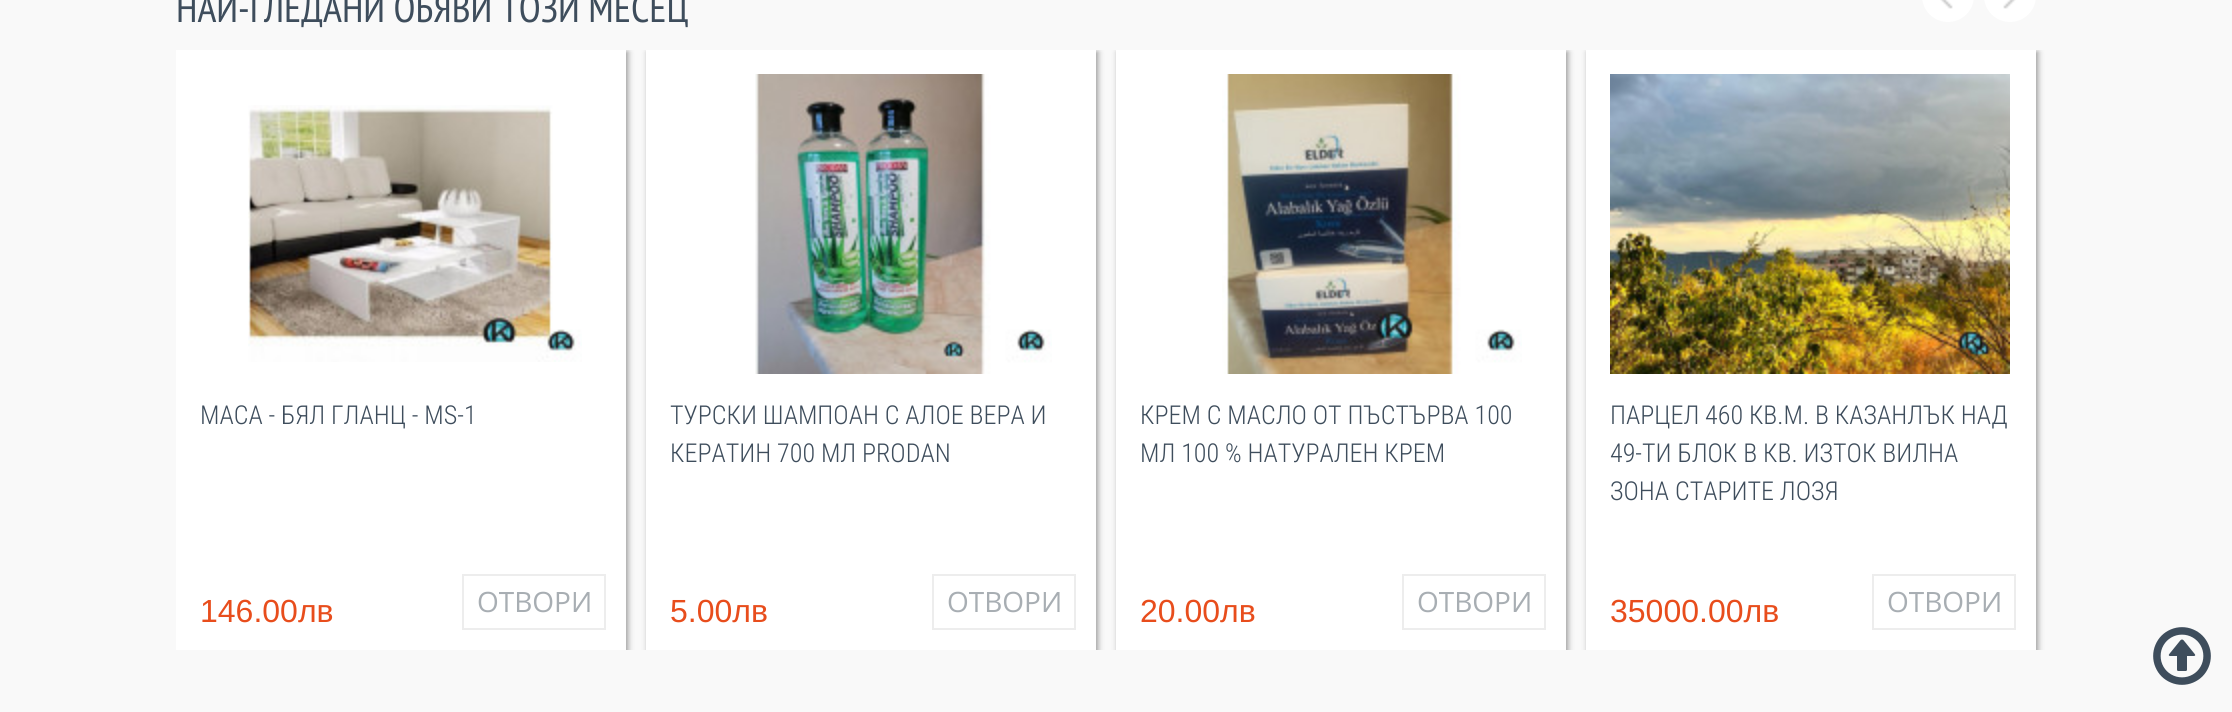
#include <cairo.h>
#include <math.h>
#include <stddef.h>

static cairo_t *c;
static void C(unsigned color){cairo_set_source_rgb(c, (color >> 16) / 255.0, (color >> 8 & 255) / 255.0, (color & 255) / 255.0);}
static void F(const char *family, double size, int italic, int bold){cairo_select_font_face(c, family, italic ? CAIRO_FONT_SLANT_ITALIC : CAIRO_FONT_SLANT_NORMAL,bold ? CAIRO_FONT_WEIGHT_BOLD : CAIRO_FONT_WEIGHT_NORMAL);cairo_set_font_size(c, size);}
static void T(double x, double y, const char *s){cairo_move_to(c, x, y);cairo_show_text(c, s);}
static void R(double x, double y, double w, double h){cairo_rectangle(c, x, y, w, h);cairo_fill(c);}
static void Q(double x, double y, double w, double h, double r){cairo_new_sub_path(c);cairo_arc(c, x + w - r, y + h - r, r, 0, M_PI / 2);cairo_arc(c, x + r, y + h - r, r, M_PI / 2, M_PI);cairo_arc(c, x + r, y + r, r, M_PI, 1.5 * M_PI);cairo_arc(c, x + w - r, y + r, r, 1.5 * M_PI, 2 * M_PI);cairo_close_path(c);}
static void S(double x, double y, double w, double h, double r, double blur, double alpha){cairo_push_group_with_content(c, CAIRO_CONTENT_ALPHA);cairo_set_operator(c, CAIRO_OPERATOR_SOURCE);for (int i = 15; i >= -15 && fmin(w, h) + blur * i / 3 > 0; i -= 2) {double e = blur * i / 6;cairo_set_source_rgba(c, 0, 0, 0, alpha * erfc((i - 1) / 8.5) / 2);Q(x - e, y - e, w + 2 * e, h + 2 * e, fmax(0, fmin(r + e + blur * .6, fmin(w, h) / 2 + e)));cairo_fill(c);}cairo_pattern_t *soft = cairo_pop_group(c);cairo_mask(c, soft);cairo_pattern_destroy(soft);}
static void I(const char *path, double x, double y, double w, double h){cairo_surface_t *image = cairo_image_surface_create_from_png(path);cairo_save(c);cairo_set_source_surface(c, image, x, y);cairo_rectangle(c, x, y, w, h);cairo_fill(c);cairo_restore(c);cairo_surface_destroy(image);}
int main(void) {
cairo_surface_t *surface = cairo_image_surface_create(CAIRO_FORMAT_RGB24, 2232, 712);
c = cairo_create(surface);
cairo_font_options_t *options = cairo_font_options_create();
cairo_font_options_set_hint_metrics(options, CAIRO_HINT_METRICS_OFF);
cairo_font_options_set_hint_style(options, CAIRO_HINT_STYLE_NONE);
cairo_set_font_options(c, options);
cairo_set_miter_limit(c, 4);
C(0xf9f9f9);
cairo_paint(c);
F("PT Sans Narrow",40,0,0);
C(0x3e4d5c);
T(176,22,"НАЙ-ГЛЕДАНИ ОБЯВИ ТОЗИ МЕСЕЦ");
C(0xffffff);
Q(1922,-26,52,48,26);
cairo_fill(c);
I("1.png",1940,0,13,9);
Q(1984,-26,52,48,26);
cairo_fill(c);
I("2.png",2003,0,13,9);
cairo_save(c);
cairo_rectangle(c,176,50,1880,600);
cairo_clip(c);
C(0x999999);
S(178,52,450,600,0,3,1);
cairo_restore(c);
R(176,50,450,600);
I("3.png",248,105,334,257);
F("Roboto Condensed Light",26,0,0);
C(0x3e4d5c);
T(200,424,"МАСА - БЯЛ ГЛАНЦ - MS-1");
F("Liberation Sans",32,0,0);
C(0xe84d1c);
T(200,622,"146.00лв");
cairo_rectangle(c,463,575,142,54);
C(0xededed);
cairo_stroke(c);
F("Open Sans",28,0,0);
C(0xa8aeb3);
T(477,612,"ОТВОРИ");
cairo_save(c);
cairo_rectangle(c,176,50,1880,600);
cairo_clip(c);
C(0x999999);
S(648,52,450,600,0,3,1);
cairo_restore(c);
C(0xffffff);
R(646,50,450,600);
I("4.png",755,74,297,300);
F("Roboto Condensed Light",26,0,0);
C(0x3e4d5c);
T(670,424,"ТУРСКИ ШАМПОАН С АЛОЕ ВЕРА И");
T(670,462,"КЕРАТИН 700 МЛ PRODAN");
F("Liberation Sans",32,0,0);
C(0xe84d1c);
T(670,622,"5.00лв");
cairo_rectangle(c,933,575,142,54);
C(0xededed);
cairo_stroke(c);
F("Open Sans",28,0,0);
C(0xa8aeb3);
T(947,612,"ОТВОРИ");
cairo_save(c);
cairo_rectangle(c,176,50,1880,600);
cairo_clip(c);
C(0x999999);
S(1118,52,450,600,0,3,1);
cairo_restore(c);
C(0xffffff);
R(1116,50,450,600);
I("5.png",1222,74,300,300);
F("Roboto Condensed Light",26,0,0);
C(0x3e4d5c);
T(1140,424,"КРЕМ С МАСЛО ОТ ПЪСТЪРВА 100");
T(1140,462,"МЛ 100 % НАТУРАЛЕН КРЕМ");
F("Liberation Sans",32,0,0);
C(0xe84d1c);
T(1140,622,"20.00лв");
cairo_rectangle(c,1403,575,142,54);
C(0xededed);
cairo_stroke(c);
F("Open Sans",28,0,0);
C(0xa8aeb3);
T(1417,612,"ОТВОРИ");
cairo_save(c);
cairo_rectangle(c,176,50,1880,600);
cairo_clip(c);
C(0x999999);
S(1588,52,450,600,0,3,1);
cairo_restore(c);
C(0xffffff);
R(1586,50,450,600);
I("6.png",1610,74,400,300);
F("Roboto Condensed Light",26,0,0);
C(0x3e4d5c);
T(1610,424,"ПАРЦЕЛ 460 КВ.М. В КАЗАНЛЪК НАД");
T(1610,462,"49-ТИ БЛОК В КВ. ИЗТОК ВИЛНА");
T(1610,500,"ЗОНА СТАРИТЕ ЛОЗЯ");
F("Liberation Sans",32,0,0);
C(0xe84d1c);
T(1610,622,"35000.00лв");
cairo_rectangle(c,1873,575,142,54);
C(0xededed);
cairo_stroke(c);
F("Open Sans",28,0,0);
C(0xa8aeb3);
T(1887,612,"ОТВОРИ");
I("7.png",2153,627,58,58);
cairo_surface_write_to_png(surface, "o.png");
cairo_font_options_destroy(options);
cairo_destroy(c);
cairo_surface_destroy(surface);
return 0;
}
